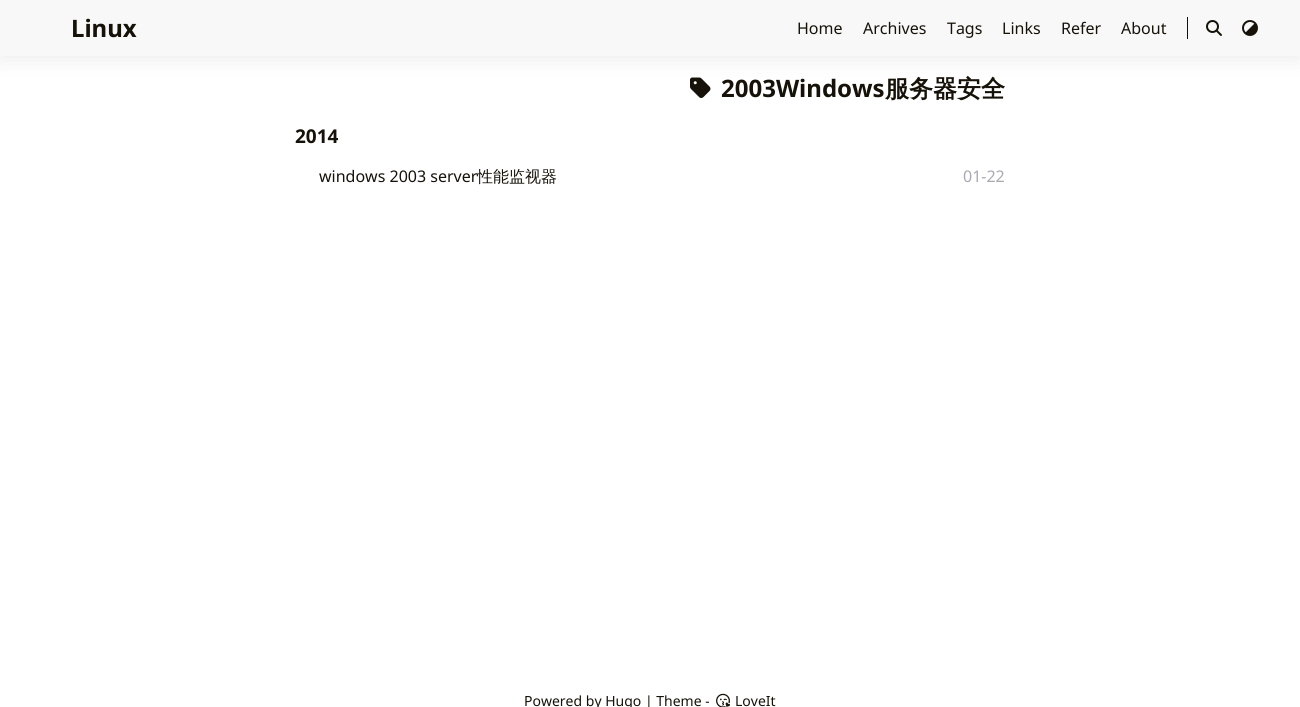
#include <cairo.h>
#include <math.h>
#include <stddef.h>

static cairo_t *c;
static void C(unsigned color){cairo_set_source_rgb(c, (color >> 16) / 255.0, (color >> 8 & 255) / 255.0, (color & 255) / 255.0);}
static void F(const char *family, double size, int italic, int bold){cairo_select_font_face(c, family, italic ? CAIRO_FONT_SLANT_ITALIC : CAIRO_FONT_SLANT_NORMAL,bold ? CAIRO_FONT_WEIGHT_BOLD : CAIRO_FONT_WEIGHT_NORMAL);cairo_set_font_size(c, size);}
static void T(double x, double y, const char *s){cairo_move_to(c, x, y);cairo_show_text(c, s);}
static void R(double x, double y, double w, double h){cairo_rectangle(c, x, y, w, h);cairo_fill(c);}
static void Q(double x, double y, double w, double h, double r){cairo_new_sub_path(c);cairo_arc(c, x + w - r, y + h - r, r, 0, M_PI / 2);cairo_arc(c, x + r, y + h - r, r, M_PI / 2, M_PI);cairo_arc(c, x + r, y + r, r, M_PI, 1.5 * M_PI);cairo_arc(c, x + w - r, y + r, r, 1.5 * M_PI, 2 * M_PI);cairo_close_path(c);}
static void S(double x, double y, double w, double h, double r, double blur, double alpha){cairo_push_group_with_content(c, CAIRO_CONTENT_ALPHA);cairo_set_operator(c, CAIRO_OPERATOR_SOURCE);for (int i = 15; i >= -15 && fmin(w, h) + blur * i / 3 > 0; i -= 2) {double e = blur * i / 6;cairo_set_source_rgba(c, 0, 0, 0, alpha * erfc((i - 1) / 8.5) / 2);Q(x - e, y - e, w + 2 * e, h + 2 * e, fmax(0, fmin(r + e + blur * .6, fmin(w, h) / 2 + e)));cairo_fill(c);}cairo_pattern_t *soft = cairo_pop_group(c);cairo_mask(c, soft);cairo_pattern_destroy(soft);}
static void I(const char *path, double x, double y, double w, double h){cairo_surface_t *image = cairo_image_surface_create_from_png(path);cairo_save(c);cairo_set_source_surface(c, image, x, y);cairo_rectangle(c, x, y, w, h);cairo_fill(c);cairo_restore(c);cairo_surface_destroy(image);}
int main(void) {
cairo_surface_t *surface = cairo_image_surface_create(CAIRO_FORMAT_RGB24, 1300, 707);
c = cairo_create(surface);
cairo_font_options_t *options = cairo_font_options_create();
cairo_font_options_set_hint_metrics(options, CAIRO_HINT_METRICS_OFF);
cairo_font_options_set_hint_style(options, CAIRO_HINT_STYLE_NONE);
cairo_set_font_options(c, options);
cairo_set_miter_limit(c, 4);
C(0xffffff);
cairo_paint(c);
I("3.png",690,77,21,21);
C(0x000000);
S(0,0,1300,56,0,12,.1);
C(0xf8f8f8);
R(0,0,1300,56);
F("Noto Sans",24,0,1);
C(0x161209);
T(71,37,"Linux");
F("Noto Sans",16,0,0);
T(797,34,"Home");
T(863,34,"Archives");
T(947,34,"Tags");
T(1002,34,"Links");
T(1061,34,"Refer");
T(1121,34,"About");
R(1187,17,1,22);
I("1.png",1206,20,16,16);
I("2.png",1242,20,16,16);
F("Noto Sans",24,0,1);
T(721,97,"2003Windows");
F("WenQuanYi Zen Hei",24,0,1);
T(885,97,"服务器安全");
F("Noto Sans",19,0,1);
T(295,143,"2014");
F("Noto Sans",16,0,0);
T(319,182,"windows 2003 server");
F("WenQuanYi Zen Hei Medium",16,0,0);
T(477,182,"性能监视器");
F("Noto Sans",16,0,0);
C(0xa9a9b3);
T(963,182,"01-22");
F("Noto Sans",14,0,0);
C(0x161209);
T(524,706,"Powered by Hugo | Theme -");
I("4.png",716,693,14,14);
T(735,706,"LoveIt");
cairo_surface_write_to_png(surface, "o.png");
cairo_font_options_destroy(options);
cairo_destroy(c);
cairo_surface_destroy(surface);
return 0;
}
